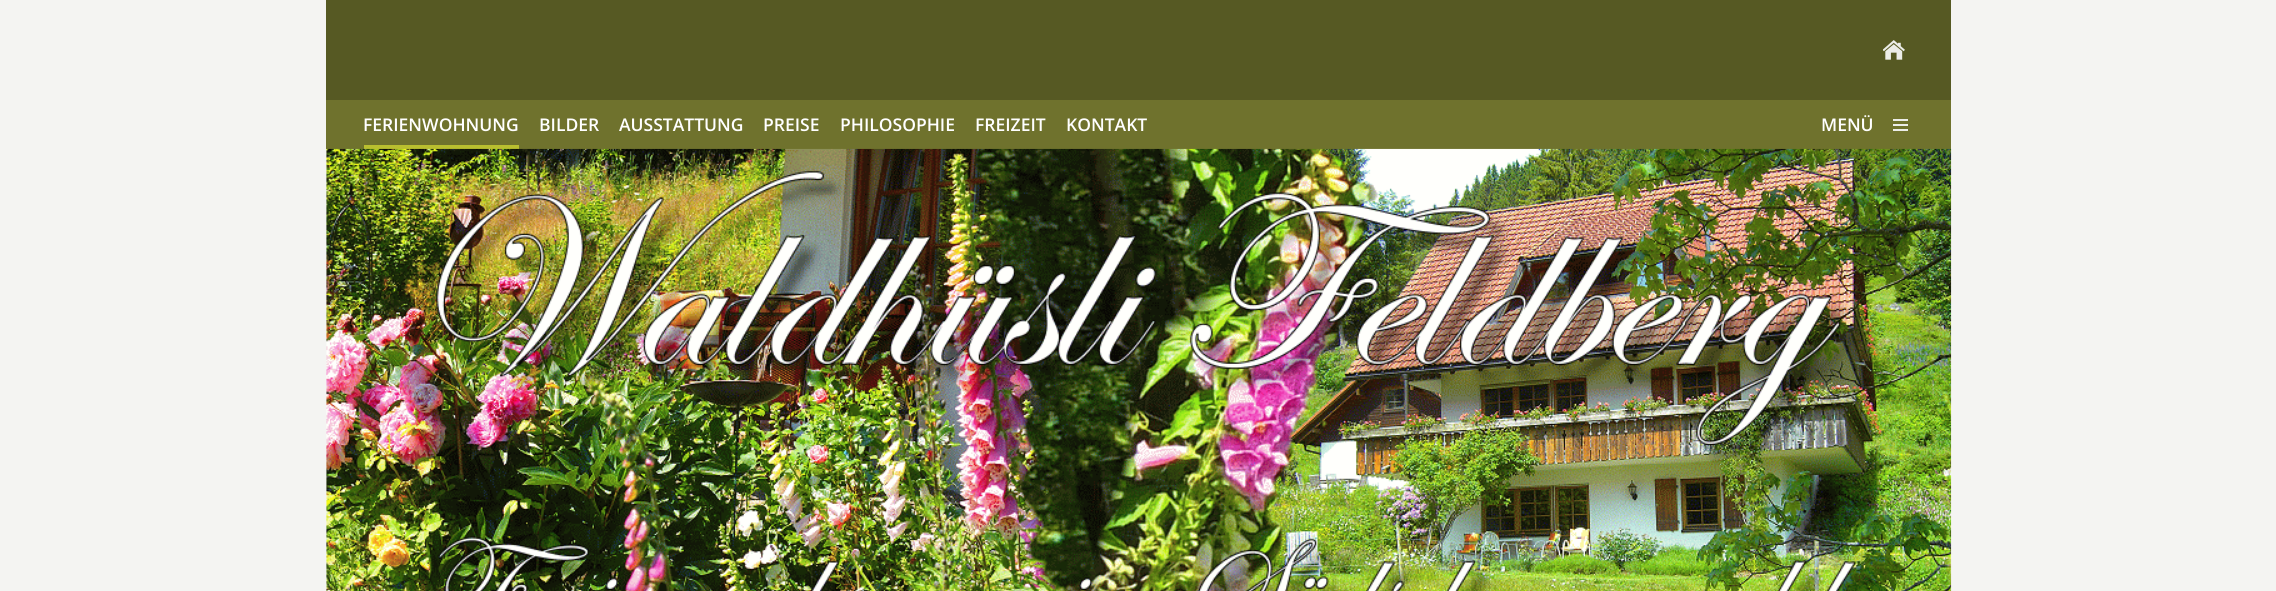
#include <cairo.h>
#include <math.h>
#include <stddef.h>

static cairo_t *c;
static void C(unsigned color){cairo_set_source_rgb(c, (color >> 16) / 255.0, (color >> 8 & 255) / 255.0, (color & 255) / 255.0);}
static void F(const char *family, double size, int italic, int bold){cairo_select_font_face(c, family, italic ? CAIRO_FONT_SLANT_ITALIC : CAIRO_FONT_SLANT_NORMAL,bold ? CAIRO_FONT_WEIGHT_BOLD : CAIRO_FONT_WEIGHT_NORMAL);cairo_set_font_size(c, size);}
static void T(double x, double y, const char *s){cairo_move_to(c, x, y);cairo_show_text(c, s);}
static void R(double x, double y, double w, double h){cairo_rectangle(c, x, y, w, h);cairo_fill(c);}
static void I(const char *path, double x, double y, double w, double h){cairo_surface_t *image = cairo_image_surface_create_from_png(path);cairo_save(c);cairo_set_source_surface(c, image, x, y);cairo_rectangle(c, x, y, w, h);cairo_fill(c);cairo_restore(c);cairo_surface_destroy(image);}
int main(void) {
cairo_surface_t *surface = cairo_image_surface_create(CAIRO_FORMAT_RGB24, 2276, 591);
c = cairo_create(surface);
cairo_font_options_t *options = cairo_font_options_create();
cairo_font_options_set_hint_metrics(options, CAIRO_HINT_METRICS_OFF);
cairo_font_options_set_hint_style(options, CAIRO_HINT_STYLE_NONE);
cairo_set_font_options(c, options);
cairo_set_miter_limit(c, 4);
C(0xf4f4f2);
cairo_paint(c);
C(0x565923);
R(326,0,1625,100);
I("1.png",1883,40,22,20);
C(0x6f722d);
R(326,100,1625,49);
C(0xb9bf2f);
R(364,145,155,4);
F("Open Sans SemiBold",17.5,0,0);
C(0xffffff);
T(363,131,"FERIENWOHNUNG");
T(539,131,"BILDER");
T(619,131,"AUSSTATTUNG");
T(763,131,"PREISE");
T(840,131,"PHILOSOPHIE");
T(975,131,"FREIZEIT");
T(1066,131,"KONTAKT");
C(0xecede8);
R(1893,129,15,2);
R(1893,124,15,2);
R(1893,119,15,2);
C(0xffffff);
T(1821,131,"MENÜ");
I("2.png",326,148,1626,443);
cairo_surface_write_to_png(surface, "o.png");
cairo_font_options_destroy(options);
cairo_destroy(c);
cairo_surface_destroy(surface);
return 0;
}
